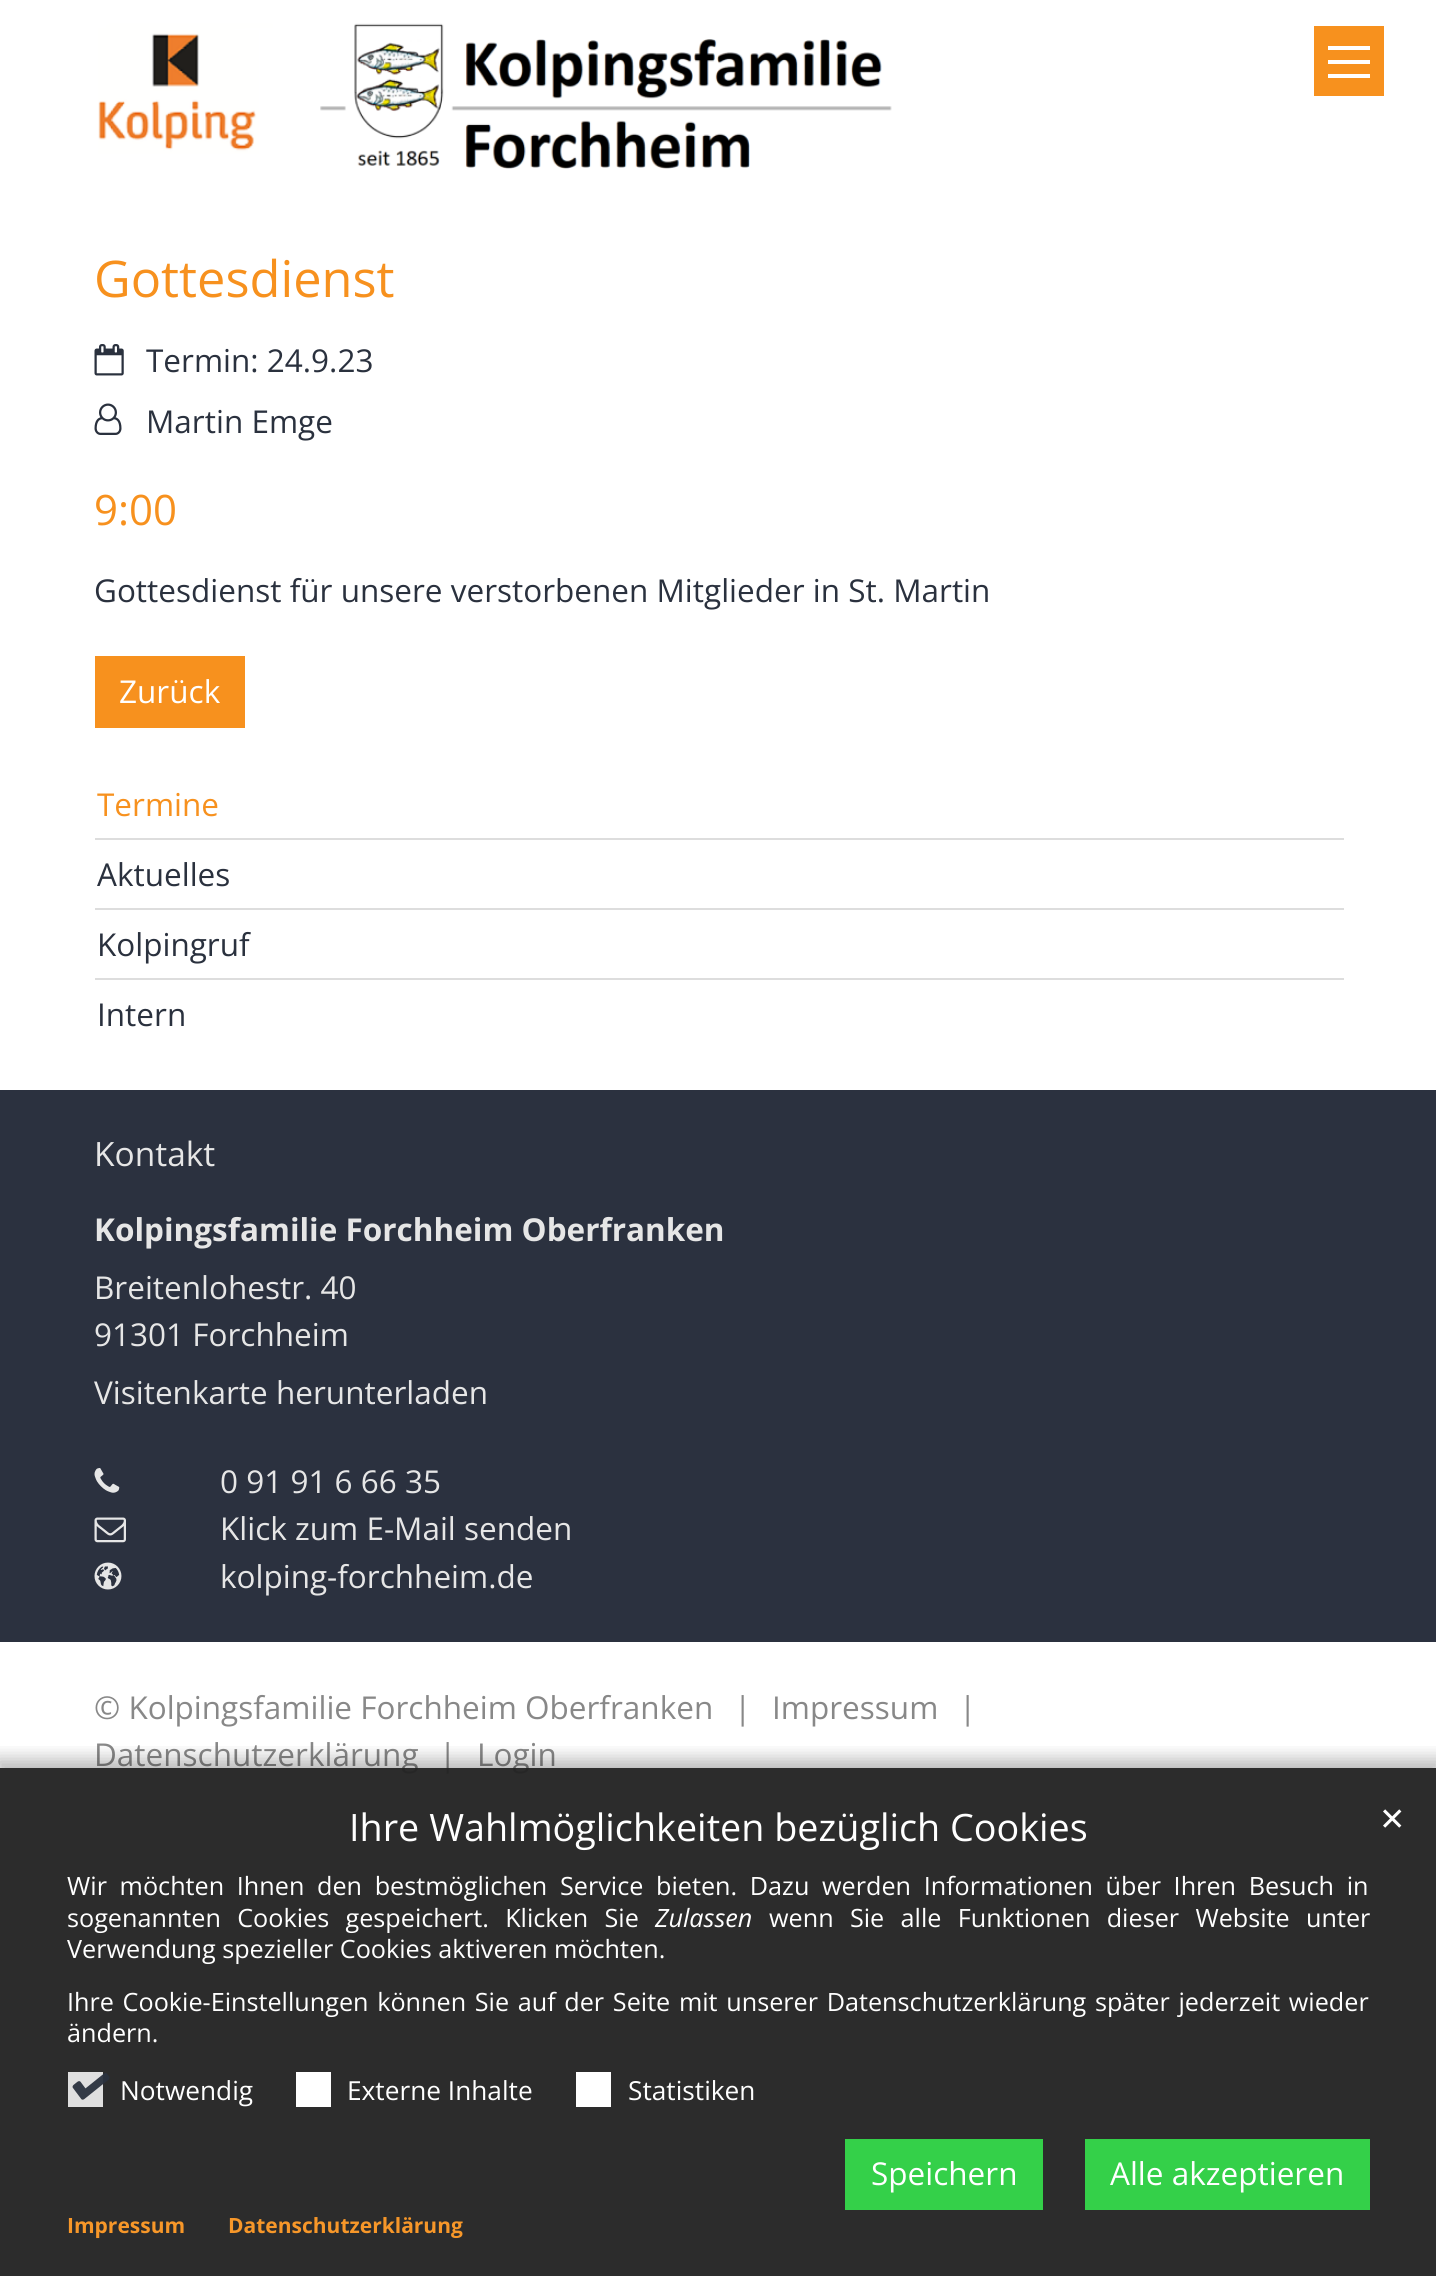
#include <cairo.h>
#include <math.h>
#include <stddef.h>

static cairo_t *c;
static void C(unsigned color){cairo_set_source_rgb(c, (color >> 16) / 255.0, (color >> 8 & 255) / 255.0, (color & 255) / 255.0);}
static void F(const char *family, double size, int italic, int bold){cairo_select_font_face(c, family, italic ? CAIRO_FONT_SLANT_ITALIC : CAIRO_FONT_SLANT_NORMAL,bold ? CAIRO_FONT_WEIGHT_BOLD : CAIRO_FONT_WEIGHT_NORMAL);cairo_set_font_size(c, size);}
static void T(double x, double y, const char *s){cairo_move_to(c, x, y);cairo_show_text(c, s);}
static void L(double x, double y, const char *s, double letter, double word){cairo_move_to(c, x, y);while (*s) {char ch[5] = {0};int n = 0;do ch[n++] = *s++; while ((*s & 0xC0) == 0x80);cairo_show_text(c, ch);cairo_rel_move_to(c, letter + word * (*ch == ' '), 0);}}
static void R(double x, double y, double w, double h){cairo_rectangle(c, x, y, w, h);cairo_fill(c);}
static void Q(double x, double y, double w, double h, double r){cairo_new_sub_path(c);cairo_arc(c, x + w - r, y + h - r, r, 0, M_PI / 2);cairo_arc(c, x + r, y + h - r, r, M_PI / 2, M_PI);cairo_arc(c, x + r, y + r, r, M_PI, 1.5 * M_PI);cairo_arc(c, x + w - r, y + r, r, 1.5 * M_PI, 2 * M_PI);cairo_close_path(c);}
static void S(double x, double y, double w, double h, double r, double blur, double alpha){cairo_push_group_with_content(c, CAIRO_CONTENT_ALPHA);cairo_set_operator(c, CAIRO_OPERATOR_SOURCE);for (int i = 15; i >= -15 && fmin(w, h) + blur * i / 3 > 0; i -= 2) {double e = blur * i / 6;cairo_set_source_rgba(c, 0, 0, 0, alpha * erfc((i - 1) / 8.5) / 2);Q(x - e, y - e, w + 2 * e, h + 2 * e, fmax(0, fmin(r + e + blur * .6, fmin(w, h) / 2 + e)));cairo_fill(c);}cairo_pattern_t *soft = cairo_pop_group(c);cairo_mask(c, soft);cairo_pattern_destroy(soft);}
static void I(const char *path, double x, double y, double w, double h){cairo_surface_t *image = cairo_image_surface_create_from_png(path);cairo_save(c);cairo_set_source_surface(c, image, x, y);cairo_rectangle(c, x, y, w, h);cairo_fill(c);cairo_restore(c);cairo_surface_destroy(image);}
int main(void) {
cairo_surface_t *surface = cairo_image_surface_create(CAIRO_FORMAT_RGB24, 1436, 2276);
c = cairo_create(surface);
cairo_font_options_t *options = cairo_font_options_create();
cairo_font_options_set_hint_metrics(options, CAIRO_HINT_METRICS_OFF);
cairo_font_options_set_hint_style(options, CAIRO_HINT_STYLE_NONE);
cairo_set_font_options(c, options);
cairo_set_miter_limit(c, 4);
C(0xffffff);
cairo_paint(c);
I("1.png",98,23,794,146);
C(0xf7911e);
R(1314,26,70,70);
C(0xffffff);
R(1328,60,42,4);
R(1328,46,42,4);
R(1328,74,42,4);
F("Open Sans",50.5,0,0);
C(0xf7911e);
T(94,297,"Gottesdienst");
I("2.png",94,344,30,32);
F("Open Sans",31.5,0,0);
C(0x2a313e);
T(146,372,"Termin: 24.9.23");
I("3.png",94,403,28,32);
T(146,433,"Martin Emge");
F("Open Sans",42,0,0);
C(0xf7911e);
T(94,525,"9:00");
F("Open Sans",31.5,0,0);
C(0x2a313e);
T(94,602,"Gottesdienst für unsere verstorbenen Mitglieder in St. Martin");
C(0xf7911e);
R(95,656,150,72);
C(0xffffff);
T(119,703,"Zurück");
C(0xf7911e);
T(97,816,"Termine");
C(0xdddddd);
R(95,838,1249,2);
C(0x2a313e);
T(97,886,"Aktuelles");
C(0xdddddd);
R(95,908,1249,2);
C(0x2a313e);
T(97,956,"Kolpingruf");
C(0xdddddd);
R(95,978,1249,2);
C(0x2a313e);
T(97,1026,"Intern");
C(0x2b313f);
R(0,1090,1436,552);
F("Open Sans",33.5,0,0);
C(0xe6e6e6);
T(94,1166,"Kontakt");
F("Open Sans",31.5,0,1);
T(94,1241,"Kolpingsfamilie Forchheim Oberfranken");
F("Open Sans",31.5,0,0);
T(94,1299,"Breitenlohestr. 40");
T(94,1346,"91301 Forchheim");
T(94,1404,"Visitenkarte herunterladen");
I("4.png",94,1468,26,25);
T(220,1493,"0 91 91 6 66 35");
I("5.png",94,1517,32,26);
T(220,1540,"Klick zum E-Mail senden");
I("6.png",94,1562,28,28);
T(220,1588,"kolping-forchheim.de");
C(0x888888);
T(94,1719,"© Kolpingsfamilie Forchheim Oberfranken");
T(734,1719,"|");
T(772,1719,"Impressum");
T(959,1719,"|");
T(94,1766,"Datenschutzerklärung");
T(439,1766,"|");
T(477,1766,"Login");
cairo_save(c);
cairo_rectangle(c,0,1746,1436,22);
cairo_clip(c);
C(0x000000);
S(-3,1759,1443,516,0,9,.28);
cairo_restore(c);
cairo_set_source_rgba(c,0.133,0.133,0.133,0.95);
R(0,1768,1436,508);
F("Open Sans",37.75,0,0);
C(0xffffff);
T(349,1841,"Ihre Wahlmöglichkeiten bezüglich Cookies");
F("DejaVu Sans",31.5,0,0);
T(1379,1830,"✕");
F("Open Sans",25.2,0,0);
L(67,1895,"Wir möchten Ihnen den bestmöglichen Service bieten. Dazu werden Informationen über Ihren Besuch in",0,6.1);
L(67,1927,"sogenannten Cookies gespeichert. Klicken Sie",0,9.75);
F("Open Sans",25.2,1,0);
T(655,1927,"Zulassen");
F("Open Sans",25.2,0,0);
L(769,1927,"wenn Sie alle Funktionen dieser Website unter",0,9.75);
T(67,1958,"Verwendung spezieller Cookies aktiveren möchten.");
L(67,2011,"Ihre Cookie-Einstellungen können Sie auf der Seite mit unserer Datenschutzerklärung später jederzeit wieder",0,2.1);
T(67,2042,"ändern.");
C(0xdfdfdf);
R(68,2072,35,35);
I("7.png",72,2073,38,27);
F("Open Sans",26.25,0,0);
C(0xffffff);
T(120,2100,"Notwendig");
R(296,2072,35,35);
T(347,2100,"Externe Inhalte");
R(576,2072,35,35);
T(628,2100,"Statistiken");
C(0x34d049);
R(845,2139,198,71);
F("Open Sans",31.5,0,0);
C(0xffffff);
T(871,2185,"Speichern");
C(0x34d049);
R(1085,2139,285,71);
C(0xffffff);
T(1110,2185,"Alle akzeptieren");
F("Open Sans",21,0,1);
C(0xf79729);
T(67,2233,"Impressum");
T(228,2233,"Datenschutzerklärung");
cairo_surface_write_to_png(surface, "o.png");
cairo_font_options_destroy(options);
cairo_destroy(c);
cairo_surface_destroy(surface);
return 0;
}
